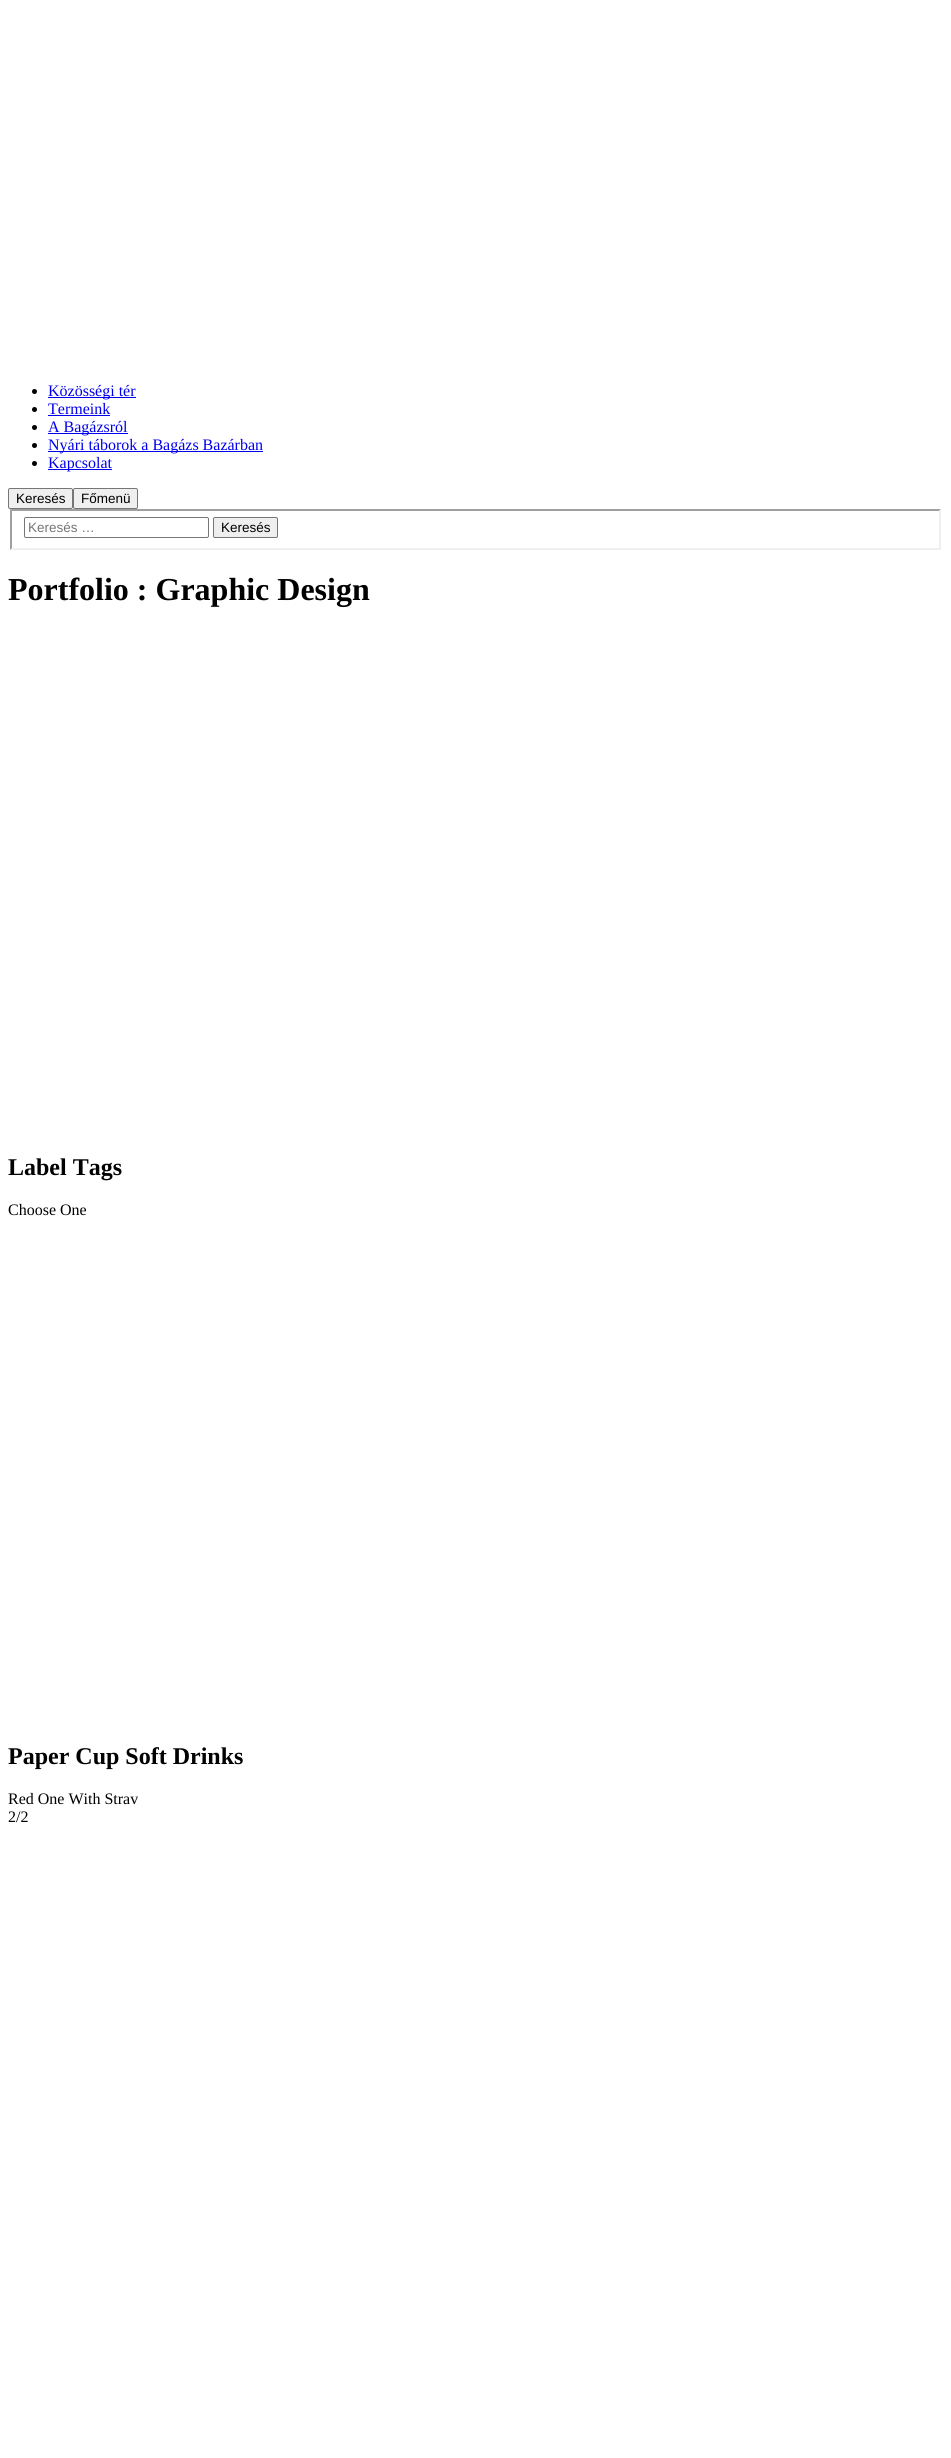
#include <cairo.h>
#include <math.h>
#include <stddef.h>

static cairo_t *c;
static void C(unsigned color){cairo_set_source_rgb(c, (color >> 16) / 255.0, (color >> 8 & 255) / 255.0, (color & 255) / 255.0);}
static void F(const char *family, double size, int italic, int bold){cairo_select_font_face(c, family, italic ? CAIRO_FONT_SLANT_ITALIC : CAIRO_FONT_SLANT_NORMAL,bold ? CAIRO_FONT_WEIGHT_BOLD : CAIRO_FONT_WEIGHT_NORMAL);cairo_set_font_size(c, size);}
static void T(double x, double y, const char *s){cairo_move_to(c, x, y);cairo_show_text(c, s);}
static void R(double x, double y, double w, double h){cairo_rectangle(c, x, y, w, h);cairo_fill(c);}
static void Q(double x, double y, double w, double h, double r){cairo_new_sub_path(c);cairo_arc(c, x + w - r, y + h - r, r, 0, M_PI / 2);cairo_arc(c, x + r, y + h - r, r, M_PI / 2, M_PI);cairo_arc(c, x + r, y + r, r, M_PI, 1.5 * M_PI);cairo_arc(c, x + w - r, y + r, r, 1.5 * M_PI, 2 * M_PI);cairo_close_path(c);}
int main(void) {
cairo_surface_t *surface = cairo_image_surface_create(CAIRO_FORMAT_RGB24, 951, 2458);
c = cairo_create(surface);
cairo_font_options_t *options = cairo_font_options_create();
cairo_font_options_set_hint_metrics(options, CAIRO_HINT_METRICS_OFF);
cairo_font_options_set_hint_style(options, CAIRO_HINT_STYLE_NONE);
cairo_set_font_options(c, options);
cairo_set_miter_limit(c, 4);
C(0xffffff);
cairo_paint(c);
C(0x000000);
cairo_arc(c,34.5,391.5,2.5,0,2 * M_PI);
cairo_fill(c);
C(0x0000ee);
R(48,397,88,1);
F("Liberation Serif",16,0,0);
T(48,396,"Közösségi tér");
C(0x000000);
cairo_new_path(c);
cairo_arc(c,34.5,409.5,2.5,0,2 * M_PI);
cairo_fill(c);
C(0x0000ee);
T(48,414,"Termeink");
R(48,415,62,1);
C(0x000000);
cairo_new_path(c);
cairo_arc(c,34.5,427.5,2.5,0,2 * M_PI);
cairo_fill(c);
C(0x0000ee);
R(48,433,80,1);
T(48,432,"A Bagázsról");
C(0x000000);
cairo_new_path(c);
cairo_arc(c,34.5,445.5,2.5,0,2 * M_PI);
cairo_fill(c);
C(0x0000ee);
R(48,451,215,1);
T(48,450,"Nyári táborok a Bagázs Bazárban");
C(0x000000);
cairo_new_path(c);
cairo_arc(c,34.5,463.5,2.5,0,2 * M_PI);
cairo_fill(c);
C(0x0000ee);
R(48,469,64,1);
T(48,468,"Kapcsolat");
C(0xefefef);
Q(8.5,488.5,64,20,1.5);
cairo_fill_preserve(c);
C(0x767676);
cairo_set_line_width(c,1);
cairo_stroke(c);
F("Liberation Sans",13.5,0,0);
C(0x000000);
T(16,503,"Keresés");
C(0xefefef);
Q(73.5,488.5,64,20,1.5);
cairo_fill_preserve(c);
C(0x767676);
cairo_stroke(c);
C(0x000000);
T(81,503,"Főmenü");
C(0x9f9f9f);
cairo_new_path(c);
cairo_move_to(c,10,509);
cairo_line_to(c,941,509);
cairo_line_to(c,939,511);
cairo_line_to(c,12,511);
cairo_close_path(c);
cairo_fill(c);
C(0xefefef);
cairo_new_path(c);
cairo_move_to(c,941,509);
cairo_line_to(c,941,550);
cairo_line_to(c,939,548);
cairo_line_to(c,939,511);
cairo_close_path(c);
cairo_fill(c);
cairo_new_path(c);
cairo_move_to(c,941,550);
cairo_line_to(c,10,550);
cairo_line_to(c,12,548);
cairo_line_to(c,939,548);
cairo_close_path(c);
cairo_fill(c);
C(0x9f9f9f);
cairo_new_path(c);
cairo_move_to(c,10,550);
cairo_line_to(c,10,509);
cairo_line_to(c,12,511);
cairo_line_to(c,12,548);
cairo_close_path(c);
cairo_fill(c);
Q(24.5,517.5,184,20,1.5);
C(0x767676);
cairo_stroke(c);
C(0x757575);
T(28,532,"Keresés …");
C(0xefefef);
Q(213.5,517.5,64,20,1.5);
cairo_fill_preserve(c);
C(0x767676);
cairo_stroke(c);
C(0x000000);
T(221,532,"Keresés");
F("Liberation Serif",32,0,1);
T(8,600,"Portfolio : Graphic Design");
F("Liberation Serif",24,0,1);
T(8,1175,"Label Tags");
F("Liberation Serif",16,0,0);
T(8,1215,"Choose One");
F("Liberation Serif",24,0,1);
T(8,1764,"Paper Cup Soft Drinks");
F("Liberation Serif",16,0,0);
T(8,1804,"Red One With Strav");
T(8,1822,"2/2");
cairo_surface_write_to_png(surface, "o.png");
cairo_font_options_destroy(options);
cairo_destroy(c);
cairo_surface_destroy(surface);
return 0;
}
